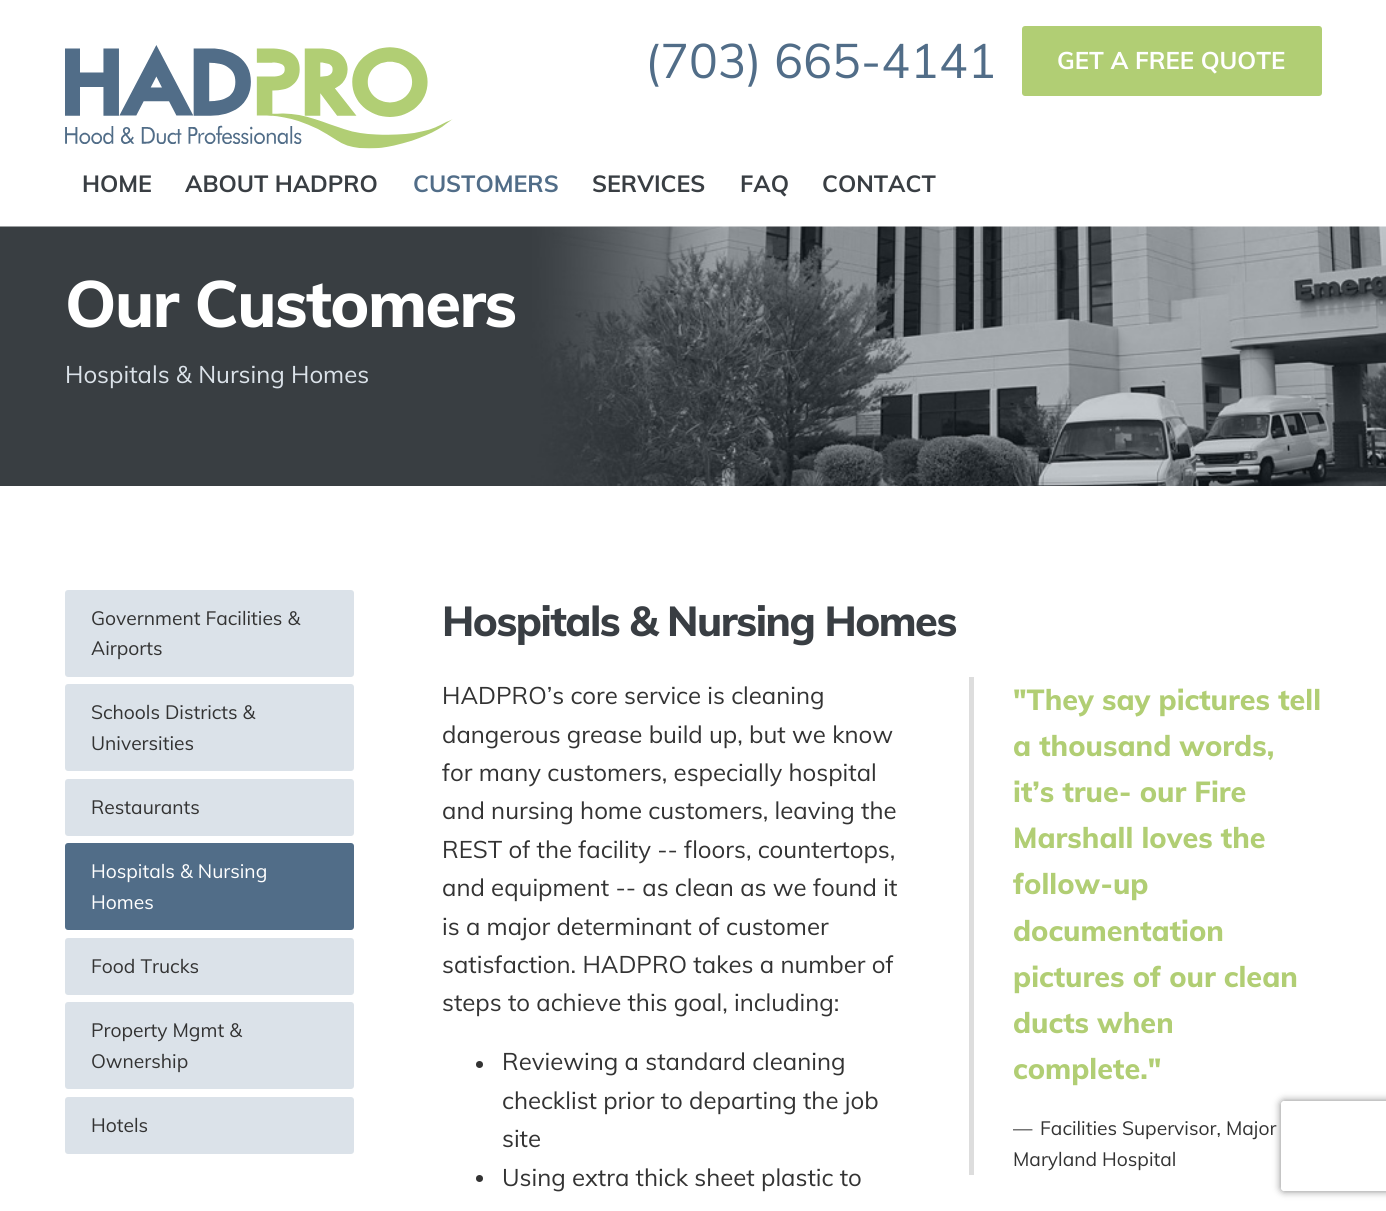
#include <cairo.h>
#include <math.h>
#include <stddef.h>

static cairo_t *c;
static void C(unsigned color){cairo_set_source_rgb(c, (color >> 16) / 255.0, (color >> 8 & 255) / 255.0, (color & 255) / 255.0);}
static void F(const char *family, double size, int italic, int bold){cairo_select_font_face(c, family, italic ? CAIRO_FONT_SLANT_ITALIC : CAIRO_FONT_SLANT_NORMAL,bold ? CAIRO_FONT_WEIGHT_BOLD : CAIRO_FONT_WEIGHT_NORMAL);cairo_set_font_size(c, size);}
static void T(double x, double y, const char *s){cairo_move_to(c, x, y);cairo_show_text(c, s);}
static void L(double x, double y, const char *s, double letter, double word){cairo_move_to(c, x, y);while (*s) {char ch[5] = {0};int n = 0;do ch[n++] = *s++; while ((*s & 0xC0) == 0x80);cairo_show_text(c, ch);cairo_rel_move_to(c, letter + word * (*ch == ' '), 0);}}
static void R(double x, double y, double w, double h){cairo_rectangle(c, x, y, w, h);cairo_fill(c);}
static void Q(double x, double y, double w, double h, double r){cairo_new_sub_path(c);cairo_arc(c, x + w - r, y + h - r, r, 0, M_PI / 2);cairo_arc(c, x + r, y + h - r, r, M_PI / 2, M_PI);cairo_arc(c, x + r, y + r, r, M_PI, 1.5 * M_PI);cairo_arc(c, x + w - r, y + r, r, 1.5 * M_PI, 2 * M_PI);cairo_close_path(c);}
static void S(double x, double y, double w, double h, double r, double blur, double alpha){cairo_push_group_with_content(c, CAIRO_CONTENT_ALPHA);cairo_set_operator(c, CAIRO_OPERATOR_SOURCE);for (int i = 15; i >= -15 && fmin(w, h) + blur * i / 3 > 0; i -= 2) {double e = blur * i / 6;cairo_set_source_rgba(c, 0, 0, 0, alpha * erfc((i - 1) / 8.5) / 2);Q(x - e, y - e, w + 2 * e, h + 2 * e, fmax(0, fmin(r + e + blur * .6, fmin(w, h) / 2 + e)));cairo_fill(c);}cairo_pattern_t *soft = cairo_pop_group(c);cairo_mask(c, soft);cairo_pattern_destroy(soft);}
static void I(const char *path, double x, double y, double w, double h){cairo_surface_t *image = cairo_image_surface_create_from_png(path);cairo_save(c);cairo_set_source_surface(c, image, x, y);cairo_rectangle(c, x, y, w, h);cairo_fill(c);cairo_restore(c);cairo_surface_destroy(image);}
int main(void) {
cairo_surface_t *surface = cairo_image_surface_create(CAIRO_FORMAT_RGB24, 1386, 1211);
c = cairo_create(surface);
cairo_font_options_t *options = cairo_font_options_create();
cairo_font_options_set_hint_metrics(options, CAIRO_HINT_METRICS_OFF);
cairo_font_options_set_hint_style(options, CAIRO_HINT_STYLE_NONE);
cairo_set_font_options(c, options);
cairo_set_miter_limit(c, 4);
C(0xffffff);
cairo_paint(c);
I("1.png",65,45,388,104);
F("Muli",48,0,0);
C(0x516d88);
T(645,78,"(703) 665-4141");
C(0xb1ce74);
Q(1023.5,27.5,297,67,1.5);
cairo_fill_preserve(c);
cairo_set_line_width(c,3);
cairo_stroke(c);
F("Muli",24,0,1);
C(0xffffff);
T(1057,69,"GET A FREE QUOTE");
F("Muli",23.25,0,1);
C(0x393e43);
T(82,192,"HOME");
T(185,192,"ABOUT HADPRO");
C(0x516d88);
T(413,192,"CUSTOMERS");
C(0x393e43);
T(592,192,"SERVICES");
T(740,192,"FAQ");
T(822,192,"CONTACT");
I("2.png",0,226,1386,260);
F("Muli ExtraBold",64.75,0,0);
C(0xffffff);
L(65,327,"Our Customers",-1.5,0);
F("Muli",24,0,0);
C(0xdbe2e9);
T(65,383,"Hospitals & Nursing Homes");
Q(65,590,289,87,3);
cairo_fill(c);
F("Muli",19.25,0,0);
C(0x333333);
T(91,625,"Government Facilities &");
T(91,655,"Airports");
C(0xdbe2e9);
Q(65,684,289,87,3);
cairo_fill(c);
C(0x333333);
T(91,719,"Schools Districts &");
T(91,750,"Universities");
C(0xdbe2e9);
Q(65,779,289,57,3);
cairo_fill(c);
C(0x333333);
T(91,814,"Restaurants");
C(0x516d88);
Q(65,843,289,87,3);
cairo_fill(c);
C(0xffffff);
T(91,878,"Hospitals & Nursing");
T(91,909,"Homes");
C(0xdbe2e9);
Q(65,938,289,57,3);
cairo_fill(c);
C(0x333333);
T(91,973,"Food Trucks");
C(0xdbe2e9);
Q(65,1002,289,87,3);
cairo_fill(c);
C(0x333333);
T(91,1037,"Property Mgmt &");
T(91,1068,"Ownership");
C(0xdbe2e9);
Q(65,1097,289,57,3);
cairo_fill(c);
C(0x333333);
T(91,1132,"Hotels");
F("Muli ExtraBold",41.5,0,0);
C(0x393e43);
L(442,636,"Hospitals & Nursing Homes",-1.5,0);
F("Muli",24,0,0);
C(0x333333);
T(442,704,"HADPRO’s core service is cleaning");
T(442,743,"dangerous grease build up, but we know");
T(442,781,"for many customers, especially hospital");
T(442,819,"and nursing home customers, leaving the");
T(442,858,"REST of the facility -- floors, countertops,");
T(442,896,"and equipment -- as clean as we found it");
T(442,935,"is a major determinant of customer");
T(442,973,"satisfaction. HADPRO takes a number of");
T(442,1011,"steps to achieve this goal, including:");
C(0xdddddd);
R(969,677,5,498);
F("Muli ExtraBold",28.75,0,0);
C(0xb1ce74);
T(1013,710,"\"They say pictures tell");
T(1013,756,"a thousand words,");
T(1013,802,"it’s true- our Fire");
T(1013,848,"Marshall loves the");
T(1013,894,"follow-up");
T(1013,941,"documentation");
T(1013,987,"pictures of our clean");
T(1013,1033,"ducts when");
T(1013,1079,"complete.\"");
F("Muli",19.25,0,0);
C(0x333333);
T(1013,1135,"—");
T(1040,1135,"Facilities Supervisor, Major");
T(1013,1166,"Maryland Hospital");
cairo_new_path(c);
cairo_arc(c,479.5,1064.5,3.5,0,2 * M_PI);
cairo_fill(c);
F("Muli",24,0,0);
T(502,1070,"Reviewing a standard cleaning");
T(502,1109,"checklist prior to departing the job");
T(502,1147,"site");
cairo_new_path(c);
cairo_arc(c,479.5,1178.5,3.5,0,2 * M_PI);
cairo_fill(c);
T(502,1186,"Using extra thick sheet plastic to");
cairo_save(c);
cairo_set_fill_rule(c,CAIRO_FILL_RULE_EVEN_ODD);
cairo_new_path(c);
cairo_move_to(c,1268,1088);
cairo_line_to(c,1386,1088);
cairo_line_to(c,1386,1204);
cairo_line_to(c,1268,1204);
cairo_close_path(c);
cairo_move_to(c,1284,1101);
cairo_line_to(c,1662,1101);
cairo_curve_to(c,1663.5,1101,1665,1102.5,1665,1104);
cairo_line_to(c,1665,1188);
cairo_curve_to(c,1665,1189.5,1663.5,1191,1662,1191);
cairo_line_to(c,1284,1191);
cairo_curve_to(c,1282.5,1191,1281,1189.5,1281,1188);
cairo_line_to(c,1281,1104);
cairo_curve_to(c,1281,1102.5,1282.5,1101,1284,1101);
cairo_close_path(c);
cairo_clip(c);
C(0x808080);
S(1281,1101,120,90,3,4,1);
cairo_restore(c);
cairo_surface_write_to_png(surface, "o.png");
cairo_font_options_destroy(options);
cairo_destroy(c);
cairo_surface_destroy(surface);
return 0;
}
